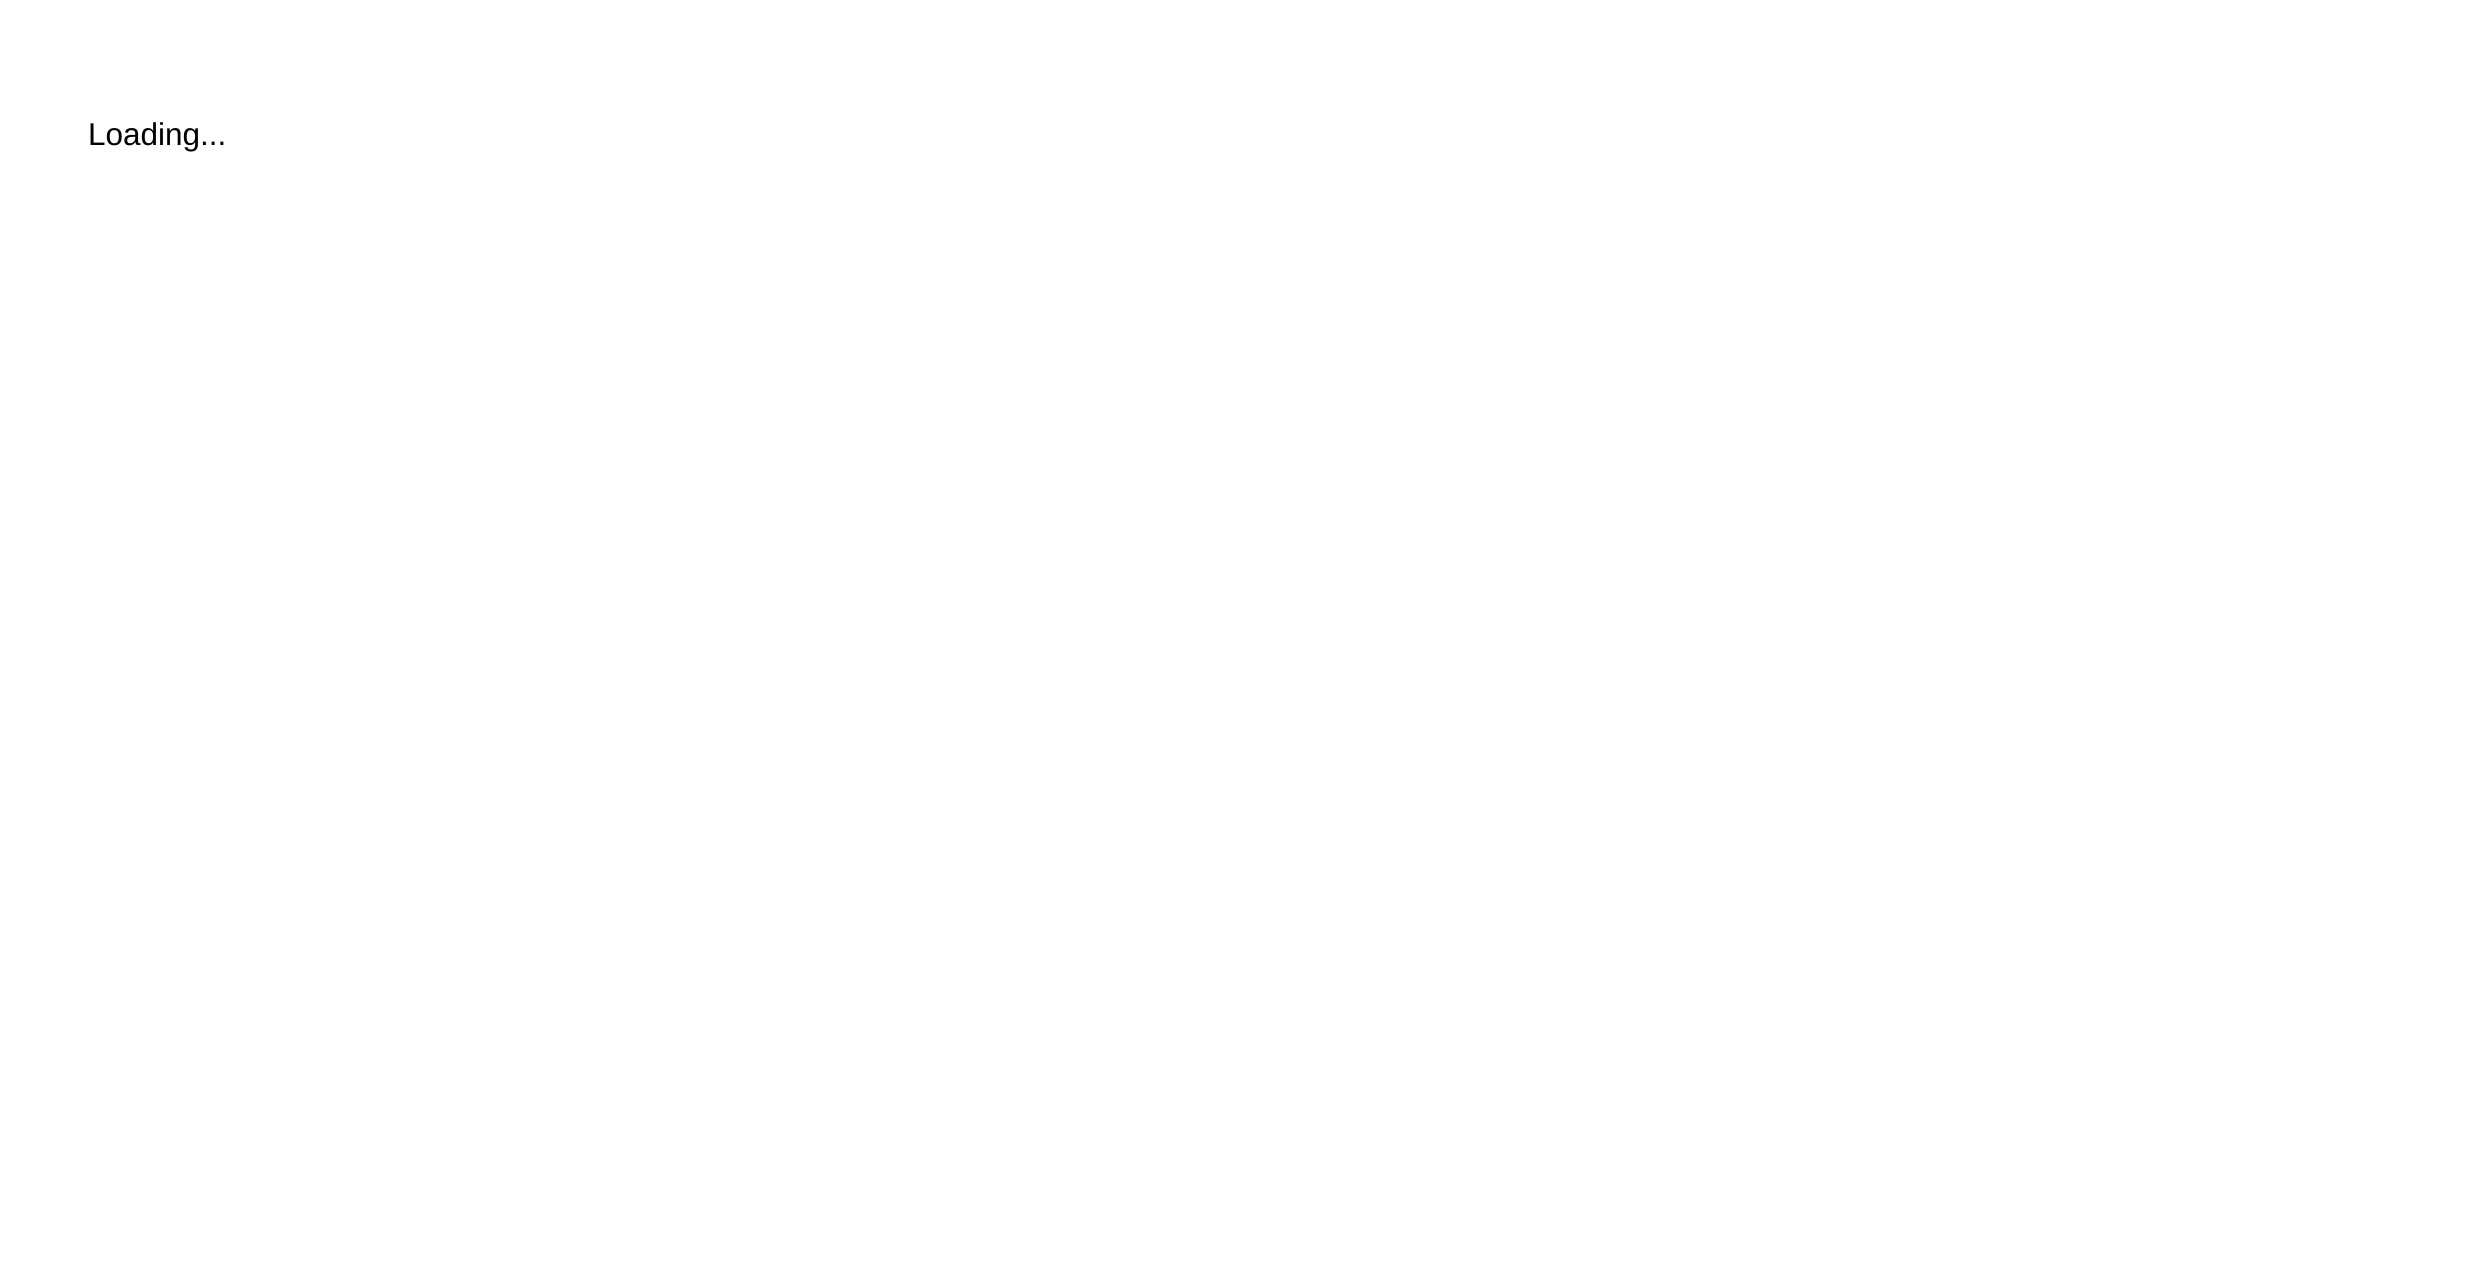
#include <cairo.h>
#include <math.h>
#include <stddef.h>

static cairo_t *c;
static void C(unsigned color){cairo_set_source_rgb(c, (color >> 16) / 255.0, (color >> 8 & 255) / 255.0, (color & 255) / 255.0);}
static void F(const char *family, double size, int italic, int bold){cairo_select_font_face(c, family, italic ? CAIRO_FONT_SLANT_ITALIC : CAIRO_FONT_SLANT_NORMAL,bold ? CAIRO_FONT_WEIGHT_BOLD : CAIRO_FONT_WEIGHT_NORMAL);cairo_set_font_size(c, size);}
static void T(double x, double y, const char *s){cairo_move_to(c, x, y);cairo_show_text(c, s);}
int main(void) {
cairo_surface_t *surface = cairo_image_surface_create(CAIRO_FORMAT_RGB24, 2466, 1282);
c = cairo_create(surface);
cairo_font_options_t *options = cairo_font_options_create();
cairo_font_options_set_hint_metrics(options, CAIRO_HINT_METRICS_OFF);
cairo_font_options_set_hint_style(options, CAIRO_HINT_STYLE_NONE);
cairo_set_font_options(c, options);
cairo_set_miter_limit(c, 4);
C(0xffffff);
cairo_paint(c);
F("Liberation Sans",31.5,0,0);
C(0x000000);
T(88,145,"Loading...");
cairo_surface_write_to_png(surface, "o.png");
cairo_font_options_destroy(options);
cairo_destroy(c);
cairo_surface_destroy(surface);
return 0;
}
